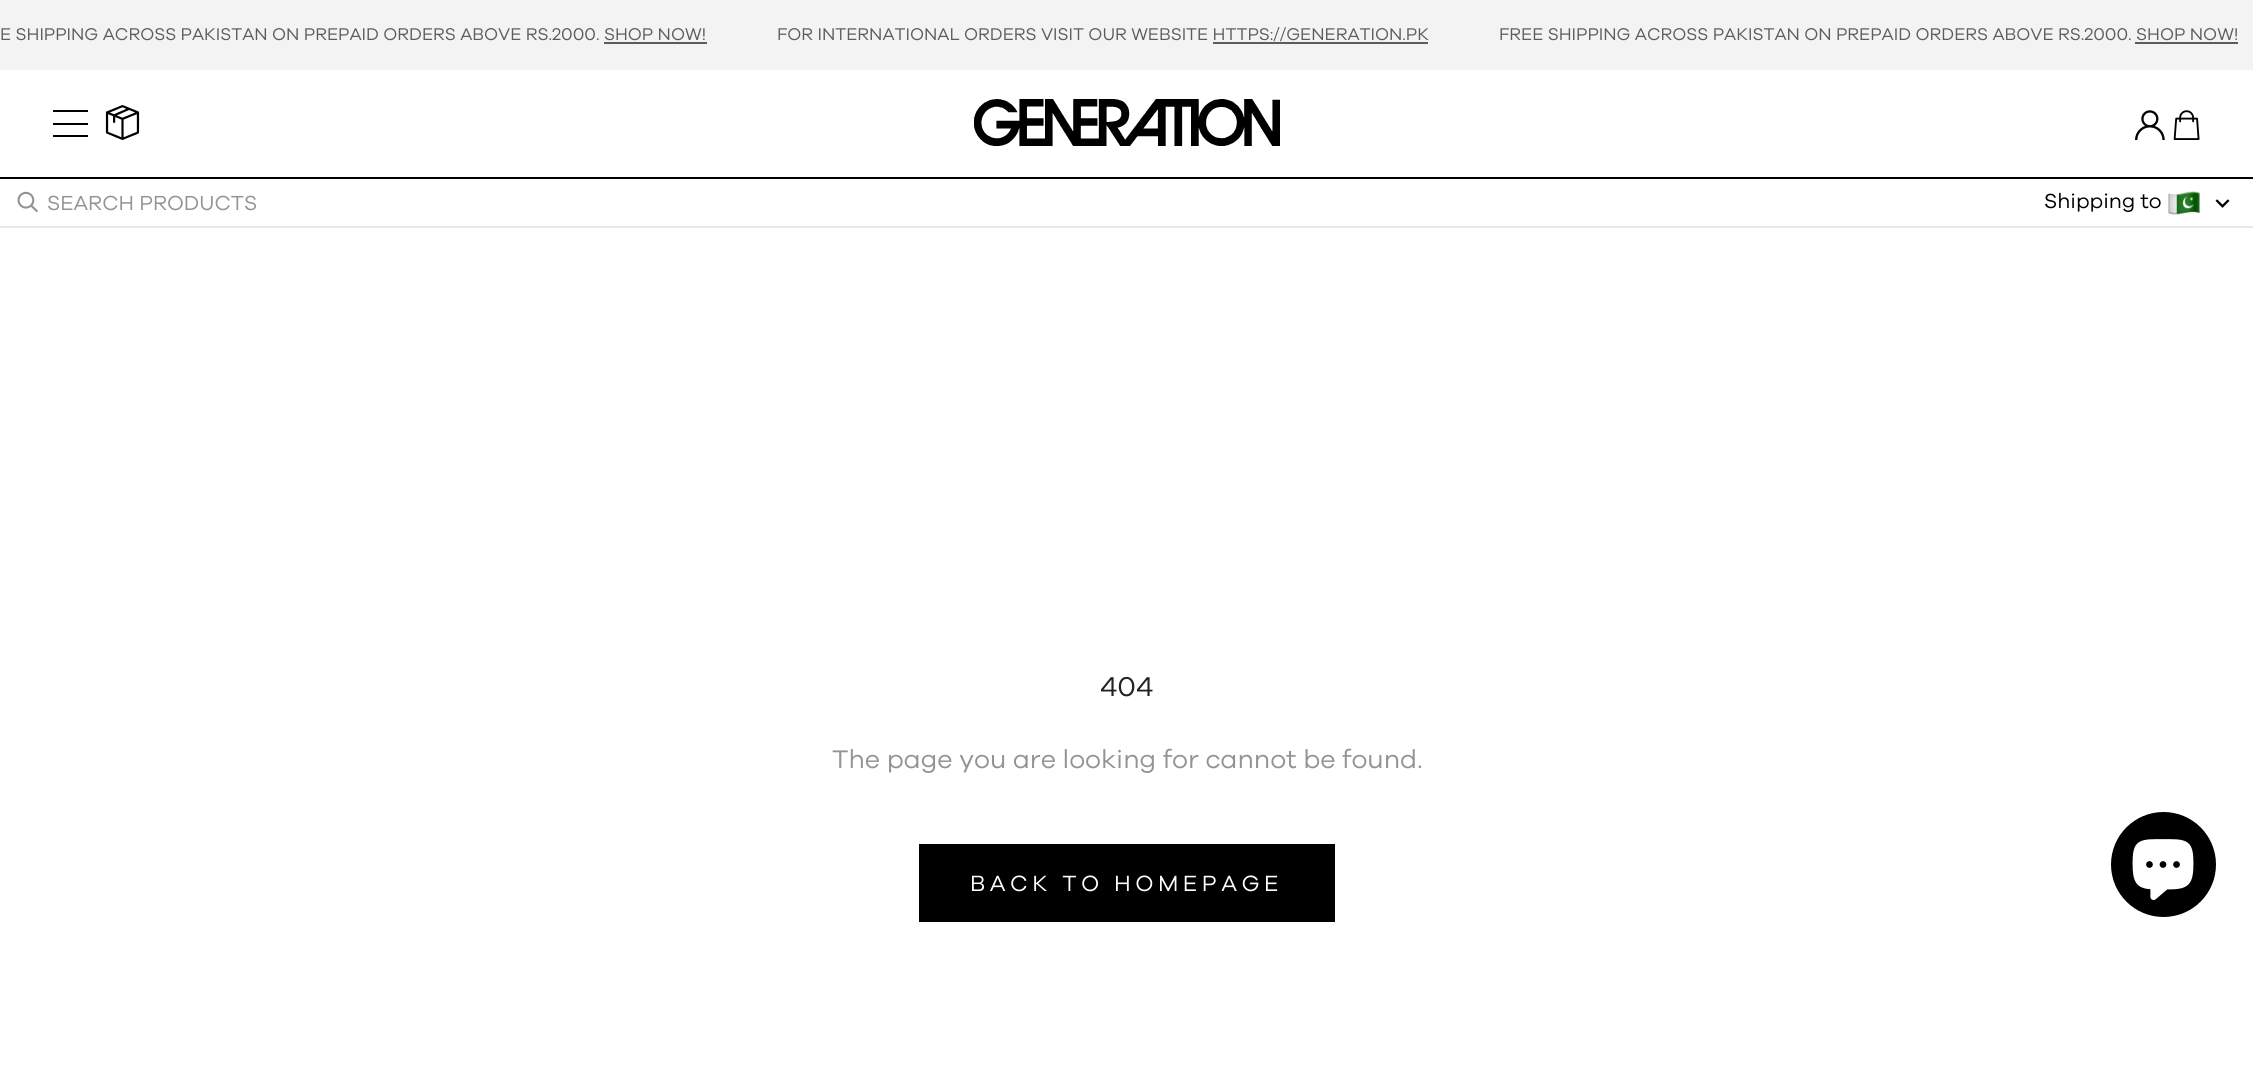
#include <cairo.h>
#include <math.h>
#include <stddef.h>

static cairo_t *c;
static void C(unsigned color){cairo_set_source_rgb(c, (color >> 16) / 255.0, (color >> 8 & 255) / 255.0, (color & 255) / 255.0);}
static void F(const char *family, double size, int italic, int bold){cairo_select_font_face(c, family, italic ? CAIRO_FONT_SLANT_ITALIC : CAIRO_FONT_SLANT_NORMAL,bold ? CAIRO_FONT_WEIGHT_BOLD : CAIRO_FONT_WEIGHT_NORMAL);cairo_set_font_size(c, size);}
static void T(double x, double y, const char *s){cairo_move_to(c, x, y);cairo_show_text(c, s);}
static void L(double x, double y, const char *s, double letter, double word){cairo_move_to(c, x, y);while (*s) {char ch[5] = {0};int n = 0;do ch[n++] = *s++; while ((*s & 0xC0) == 0x80);cairo_show_text(c, ch);cairo_rel_move_to(c, letter + word * (*ch == ' '), 0);}}
static void R(double x, double y, double w, double h){cairo_rectangle(c, x, y, w, h);cairo_fill(c);}
static void I(const char *path, double x, double y, double w, double h){cairo_surface_t *image = cairo_image_surface_create_from_png(path);cairo_save(c);cairo_set_source_surface(c, image, x, y);cairo_rectangle(c, x, y, w, h);cairo_fill(c);cairo_restore(c);cairo_surface_destroy(image);}
int main(void) {
cairo_surface_t *surface = cairo_image_surface_create(CAIRO_FORMAT_RGB24, 2253, 1065);
c = cairo_create(surface);
cairo_font_options_t *options = cairo_font_options_create();
cairo_font_options_set_hint_metrics(options, CAIRO_HINT_METRICS_OFF);
cairo_font_options_set_hint_style(options, CAIRO_HINT_STYLE_NONE);
cairo_set_font_options(c, options);
cairo_set_miter_limit(c, 4);
C(0xffffff);
cairo_paint(c);
C(0xf3f3f3);
R(0,0,2253,70);
F("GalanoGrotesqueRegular",17.5,0,0);
C(0x5c5c5c);
T(0,40,"E SHIPPING ACROSS PAKISTAN ON PREPAID ORDERS ABOVE RS.2000. SHOP NOW!");
R(604,42,103,2);
T(777,40,"FOR INTERNATIONAL ORDERS VISIT OUR WEBSITE HTTPS://GENERATION.PK");
R(1213,42,215,2);
T(1499,40,"FREE SHIPPING ACROSS PAKISTAN ON PREPAID ORDERS ABOVE RS.2000. SHOP NOW!");
R(2135,42,103,2);
C(0xe7e7e7);
R(0,226,2253,2);
C(0x000000);
R(53,110,35,2);
R(53,135,35,2);
R(53,123,35,2);
I("1.png",105,105,35,35);
I("2.png",974,99,306,47);
I("3.png",2135,110,30,30);
I("4.png",2173,110,27,30);
R(0,177,2253,2);
I("5.png",17,191,21,22);
F("GalanoGrotesqueRegular",21,0,0);
C(0x939393);
T(47,210,"SEARCH PRODUCTS");
C(0x000000);
T(2044,208,"Shipping to");
I("6.png",2168,191,32,24);
I("7.png",2215,199,15,9);
F("GalanoGrotesqueRegular",28,0,0);
C(0x232222);
T(1100,696,"404");
F("GalanoGrotesqueRegular",26.25,0,0);
C(0x939393);
T(832,768,"The page you are looking for cannot be found.");
cairo_rectangle(c,920,845,414,76);
C(0x000000);
cairo_stroke(c);
R(921,846,412,74);
F("GalanoGrotesqueRegular",22.75,0,0);
C(0xffffff);
L(970,891,"BACK TO HOMEPAGE",4.5,0);
C(0x000000);
cairo_new_path(c);
cairo_arc(c,2163.5,864.5,52.5,0,2 * M_PI);
cairo_fill(c);
I("8.png",2132,839,62,61);
cairo_surface_write_to_png(surface, "o.png");
cairo_font_options_destroy(options);
cairo_destroy(c);
cairo_surface_destroy(surface);
return 0;
}
